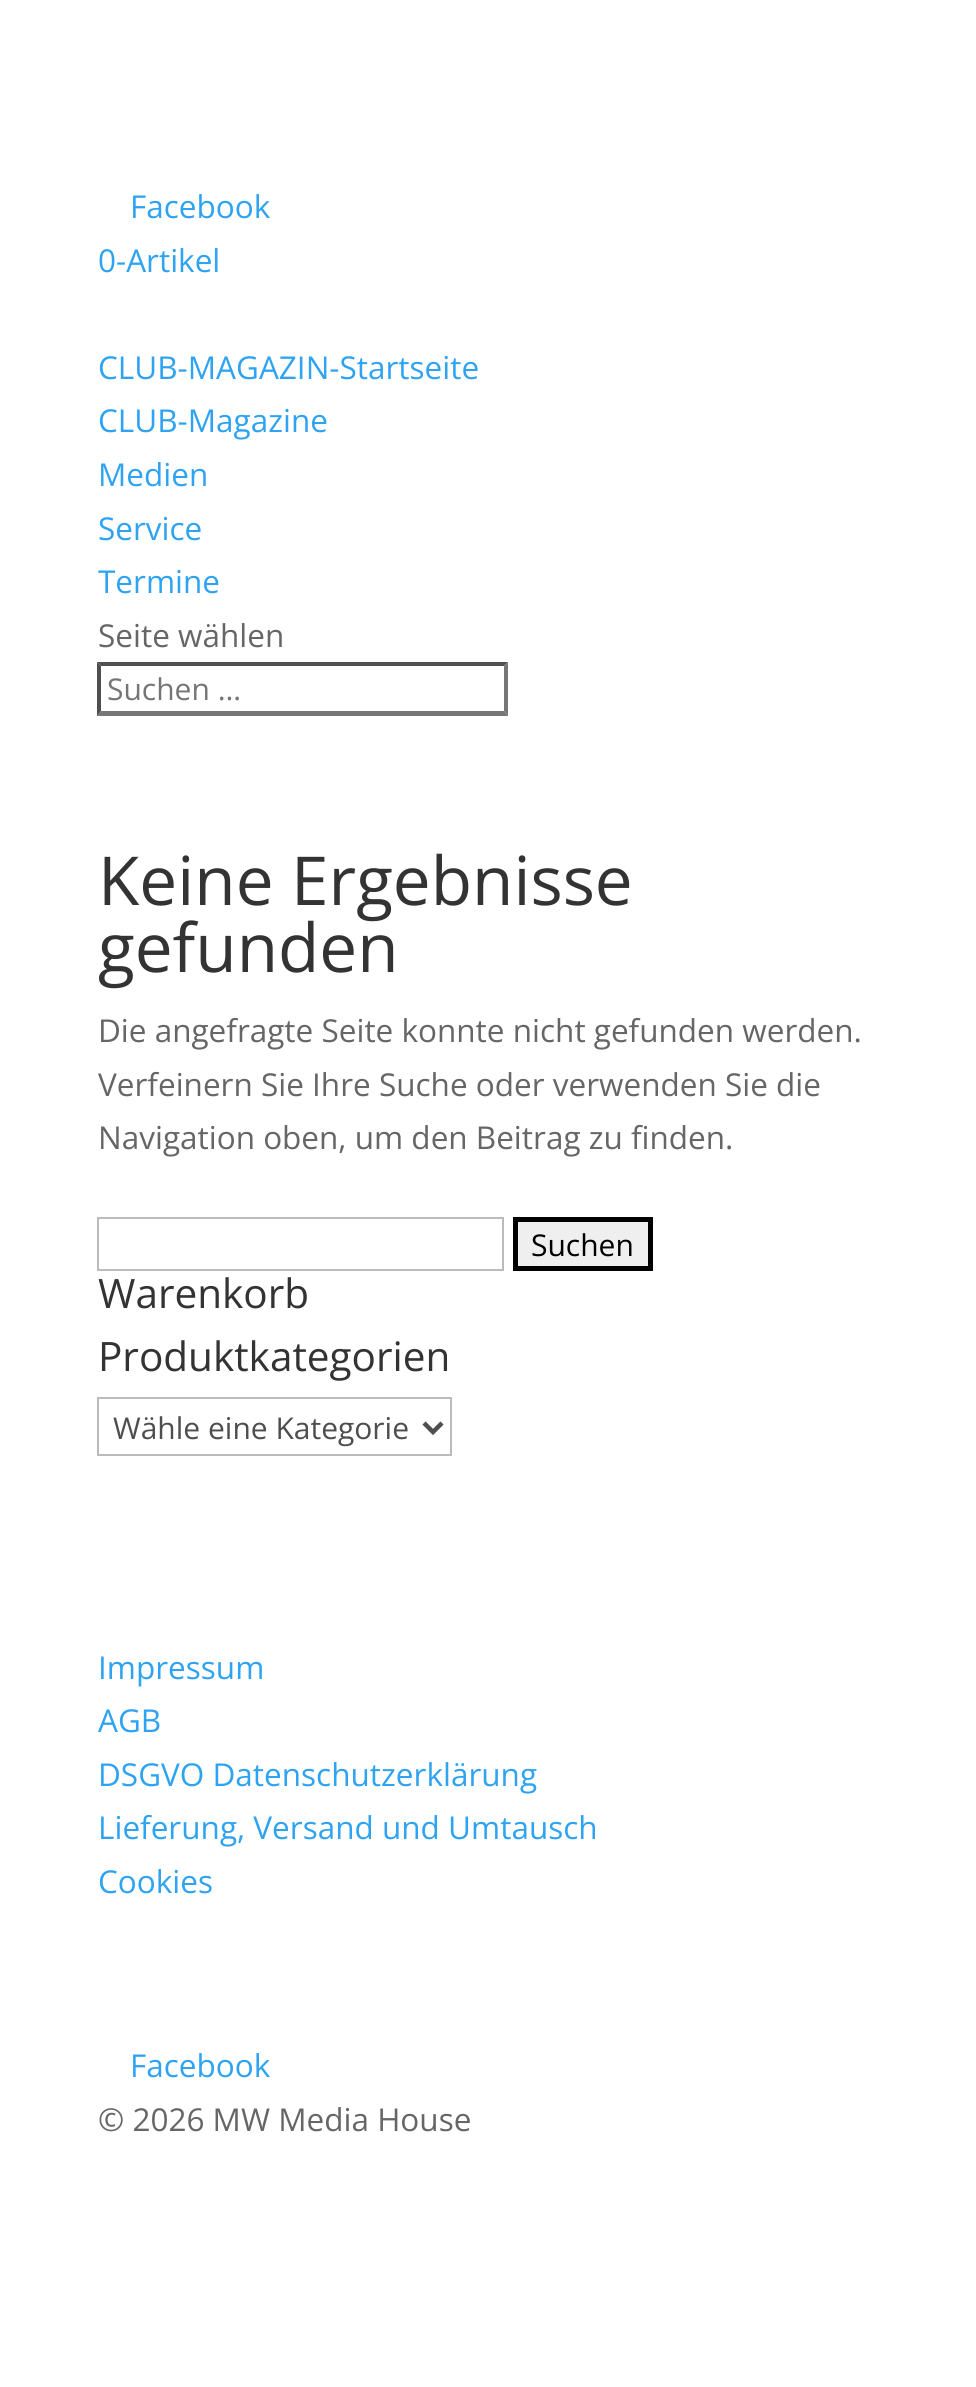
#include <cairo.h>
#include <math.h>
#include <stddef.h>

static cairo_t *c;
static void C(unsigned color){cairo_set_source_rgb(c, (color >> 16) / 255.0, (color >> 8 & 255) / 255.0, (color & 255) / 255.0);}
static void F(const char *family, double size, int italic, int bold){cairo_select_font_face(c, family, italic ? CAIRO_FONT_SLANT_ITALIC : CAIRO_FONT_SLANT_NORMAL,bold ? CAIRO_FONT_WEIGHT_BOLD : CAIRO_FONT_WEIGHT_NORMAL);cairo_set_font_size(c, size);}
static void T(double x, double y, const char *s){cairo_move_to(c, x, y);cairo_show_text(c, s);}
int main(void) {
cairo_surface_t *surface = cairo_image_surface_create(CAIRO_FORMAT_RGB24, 976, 2387);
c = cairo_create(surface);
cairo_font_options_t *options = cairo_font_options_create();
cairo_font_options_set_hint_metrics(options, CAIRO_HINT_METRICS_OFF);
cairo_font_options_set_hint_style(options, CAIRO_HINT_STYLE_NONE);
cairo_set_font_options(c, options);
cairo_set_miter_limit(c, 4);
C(0xffffff);
cairo_paint(c);
F("Open Sans",31.5,0,0);
C(0x2ea3f2);
T(130,218,"Facebook");
T(98,272,"0-Artikel");
T(98,379,"CLUB-MAGAZIN-Startseite");
T(98,432,"CLUB-Magazine");
T(98,486,"Medien");
T(98,540,"Service");
T(98,593,"Termine");
C(0x666666);
T(98,647,"Seite wählen");
C(0x4f4f4f);
cairo_new_path(c);
cairo_move_to(c,97,662);
cairo_line_to(c,508,662);
cairo_line_to(c,504,666);
cairo_line_to(c,101,666);
cairo_close_path(c);
cairo_fill(c);
C(0x767676);
cairo_new_path(c);
cairo_move_to(c,508,662);
cairo_line_to(c,508,716);
cairo_line_to(c,504,711);
cairo_line_to(c,504,666);
cairo_close_path(c);
cairo_fill(c);
cairo_new_path(c);
cairo_move_to(c,508,716);
cairo_line_to(c,97,716);
cairo_line_to(c,101,711);
cairo_line_to(c,504,711);
cairo_close_path(c);
cairo_fill(c);
C(0x4f4f4f);
cairo_new_path(c);
cairo_move_to(c,97,716);
cairo_line_to(c,97,662);
cairo_line_to(c,101,666);
cairo_line_to(c,101,711);
cairo_close_path(c);
cairo_fill(c);
F("Open Sans",30,0,0);
C(0x757575);
T(107,700,"Suchen …");
F("Open Sans",67.5,0,0);
C(0x333333);
T(98,905,"Keine Ergebnisse");
T(98,972,"gefunden");
F("Open Sans",31.5,0,0);
C(0x666666);
T(98,1042,"Die angefragte Seite konnte nicht gefunden werden.");
T(98,1096,"Verfeinern Sie Ihre Suche oder verwenden Sie die");
T(98,1149,"Navigation oben, um den Beitrag zu finden.");
cairo_rectangle(c,98,1218,405,52);
C(0xbbbbbb);
cairo_stroke(c);
C(0xefefef);
cairo_rectangle(c,515.5,1219.5,135,49);
cairo_fill_preserve(c);
C(0x000000);
cairo_set_line_width(c,5);
cairo_stroke(c);
F("Open Sans",30,0,0);
T(531,1256,"Suchen");
F("Open Sans",40.5,0,0);
C(0x333333);
T(98,1308,"Warenkorb");
T(98,1371,"Produktkategorien");
cairo_rectangle(c,98,1398,353,57);
C(0xbbbbbb);
cairo_set_line_width(c,2);
cairo_stroke(c);
cairo_new_path(c);
cairo_move_to(c,424,1423);
cairo_line_to(c,433,1432);
cairo_line_to(c,442,1423);
C(0x4e4e4e);
cairo_set_line_width(c,4.5);
cairo_stroke(c);
F("Open Sans",30,0,0);
T(113,1439,"Wähle eine Kategorie");
F("Open Sans",31.5,0,0);
C(0x2ea3f2);
T(98,1679,"Impressum");
T(98,1732,"AGB");
T(98,1786,"DSGVO Datenschutzerklärung");
T(98,1839,"Lieferung, Versand und Umtausch");
T(98,1893,"Cookies");
T(130,2077,"Facebook");
C(0x666666);
T(98,2131,"© 2026 MW Media House");
cairo_surface_write_to_png(surface, "o.png");
cairo_font_options_destroy(options);
cairo_destroy(c);
cairo_surface_destroy(surface);
return 0;
}
